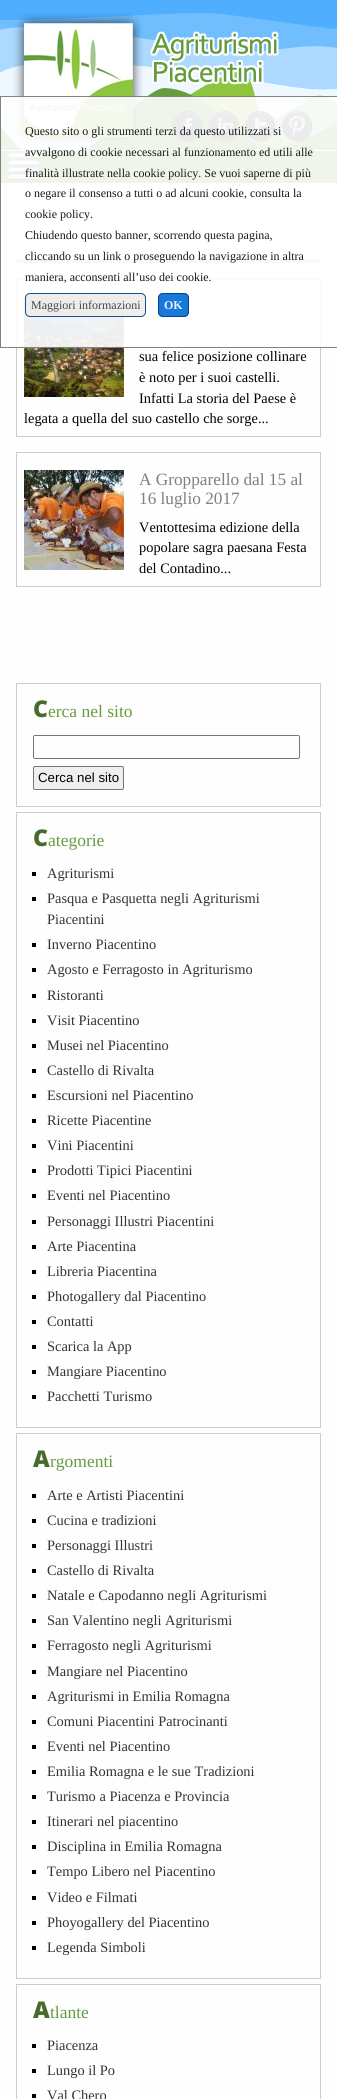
#include <cairo.h>
#include <math.h>
#include <stddef.h>

static cairo_t *c;
static void C(unsigned color){cairo_set_source_rgb(c, (color >> 16) / 255.0, (color >> 8 & 255) / 255.0, (color & 255) / 255.0);}
static void F(const char *family, double size, int italic, int bold){cairo_select_font_face(c, family, italic ? CAIRO_FONT_SLANT_ITALIC : CAIRO_FONT_SLANT_NORMAL,bold ? CAIRO_FONT_WEIGHT_BOLD : CAIRO_FONT_WEIGHT_NORMAL);cairo_set_font_size(c, size);}
static void T(double x, double y, const char *s){cairo_move_to(c, x, y);cairo_show_text(c, s);}
static void R(double x, double y, double w, double h){cairo_rectangle(c, x, y, w, h);cairo_fill(c);}
static void Q(double x, double y, double w, double h, double r){cairo_new_sub_path(c);cairo_arc(c, x + w - r, y + h - r, r, 0, M_PI / 2);cairo_arc(c, x + r, y + h - r, r, M_PI / 2, M_PI);cairo_arc(c, x + r, y + r, r, M_PI, 1.5 * M_PI);cairo_arc(c, x + w - r, y + r, r, 1.5 * M_PI, 2 * M_PI);cairo_close_path(c);}
static void I(const char *path, double x, double y, double w, double h){cairo_surface_t *image = cairo_image_surface_create_from_png(path);cairo_save(c);cairo_set_source_surface(c, image, x, y);cairo_rectangle(c, x, y, w, h);cairo_fill(c);cairo_restore(c);cairo_surface_destroy(image);}
int main(void) {
cairo_surface_t *surface = cairo_image_surface_create(CAIRO_FORMAT_RGB24, 337, 2099);
c = cairo_create(surface);
cairo_font_options_t *options = cairo_font_options_create();
cairo_font_options_set_hint_metrics(options, CAIRO_HINT_METRICS_OFF);
cairo_font_options_set_hint_style(options, CAIRO_HINT_STYLE_NONE);
cairo_set_font_options(c, options);
cairo_set_miter_limit(c, 4);
C(0xfefefe);
cairo_paint(c);
I("1.png",0,0,337,150);
I("2.png",172,111,31,32);
I("3.png",209,111,31,32);
I("4.png",245,111,31,32);
I("5.png",282,111,31,32);
C(0x669b3f);
R(0,151,337,32);
I("6.png",8,151,32,31);
C(0xa6c790);
R(16,260,305,3);
cairo_rectangle(c,16.5,279.5,304,157);
C(0xcccccc);
cairo_set_line_width(c,1);
cairo_stroke(c);
I("7.png",24,297,100,100);
cairo_set_source_rgba(c,1,1,1,0.9);
R(0,96,337,252);
cairo_rectangle(c,.5,96.5,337,251);
cairo_set_source_rgba(c,0.459,0.459,0.459,0.9);
cairo_stroke(c);
F("Liberation Serif",12,0,0);
C(0x181818);
T(25,135,"Questo sito o gli strumenti terzi da questo utilizzati si");
T(25,156,"avvalgono di cookie necessari al funzionamento ed utili alle");
T(25,177,"finalità illustrate nella cookie policy. Se vuoi saperne di più");
T(25,197,"o negare il consenso a tutti o ad alcuni cookie, consulta la");
T(25,218,"cookie policy.");
T(25,239,"Chiudendo questo banner, scorrendo questa pagina,");
T(25,260,"cliccando su un link o proseguendo la navigazione in altra");
T(25,281,"maniera, acconsenti all’uso dei cookie.");
cairo_set_source_rgba(c,0.925,0.925,0.925,0.9);
Q(25,293,121,24,5);
cairo_fill(c);
Q(25.5,293.5,120,23,4.5);
cairo_set_source_rgba(c,0,0.251,0.502,0.9);
cairo_stroke(c);
C(0x464646);
T(31,309,"Maggiori informazioni");
cairo_set_source_rgba(c,0,0.42,0.843,0.9);
Q(158,293,31,24,5);
cairo_fill(c);
Q(158.5,293.5,30,23,4.5);
cairo_set_source_rgba(c,0,0.251,0.502,0.9);
cairo_stroke(c);
F("Liberation Serif",12,0,1);
C(0xe8f2fb);
T(164,309,"OK");
F("Liberation Serif",14.4,0,0);
C(0x000000);
T(139,361,"sua felice posizione collinare");
T(139,382,"è noto per i suoi castelli.");
T(139,403,"Infatti La storia del Paese è");
T(24,423,"legata a quella del suo castello che sorge...");
cairo_rectangle(c,16.5,452.5,304,134);
C(0xcccccc);
cairo_stroke(c);
I("8.png",24,470,100,100);
F("Liberation Serif",17.25,0,0);
C(0x808080);
T(139,485,"A Gropparello dal 15 al");
T(139,504,"16 luglio 2017");
F("Liberation Serif",14.4,0,0);
C(0x000000);
T(139,532,"Ventottesima edizione della");
T(139,552,"popolare sagra paesana Festa");
T(139,573,"del Contadino...");
cairo_rectangle(c,16.5,683.5,304,123);
C(0xcccccc);
cairo_stroke(c);
F("Noto Sans Black",23,0,0);
C(0x476b2c);
T(33,717,"C");
F("Liberation Serif",17.5,0,0);
C(0x669b3f);
T(48,717,"erca nel sito");
Q(33.5,735.5,266,23,1.5);
C(0x767676);
cairo_stroke(c);
C(0xefefef);
Q(33.5,766.5,90,23,1.5);
cairo_fill_preserve(c);
C(0x767676);
cairo_stroke(c);
F("Liberation Sans",13.25,0,0);
C(0x000000);
T(38,782,"Cerca nel sito");
cairo_rectangle(c,16.5,812.5,304,615);
C(0xcccccc);
cairo_stroke(c);
F("Noto Sans Black",23,0,0);
C(0x476b2c);
T(33,846,"C");
F("Liberation Serif",17.5,0,0);
C(0x669b3f);
T(48,846,"ategorie");
C(0x000000);
R(32,872,4,4);
F("Liberation Serif",14.4,0,0);
C(0x333333);
T(47,878,"Agriturismi");
C(0x000000);
R(32,897,4,4);
C(0x333333);
T(47,903,"Pasqua e Pasquetta negli Agriturismi");
T(47,924,"Piacentini");
C(0x000000);
R(32,943,4,4);
C(0x333333);
T(47,949,"Inverno Piacentino");
C(0x000000);
R(32,968,4,4);
C(0x333333);
T(47,974,"Agosto e Ferragosto in Agriturismo");
C(0x000000);
R(32,994,4,4);
C(0x333333);
T(47,1000,"Ristoranti");
C(0x000000);
R(32,1019,4,4);
C(0x333333);
T(47,1025,"Visit Piacentino");
C(0x000000);
R(32,1044,4,4);
C(0x333333);
T(47,1050,"Musei nel Piacentino");
C(0x000000);
R(32,1069,4,4);
C(0x333333);
T(47,1075,"Castello di Rivalta");
C(0x000000);
R(32,1094,4,4);
C(0x333333);
T(47,1100,"Escursioni nel Piacentino");
C(0x000000);
R(32,1119,4,4);
C(0x333333);
T(47,1125,"Ricette Piacentine");
C(0x000000);
R(32,1144,4,4);
C(0x333333);
T(47,1150,"Vini Piacentini");
C(0x000000);
R(32,1169,4,4);
C(0x333333);
T(47,1175,"Prodotti Tipici Piacentini");
C(0x000000);
R(32,1194,4,4);
C(0x333333);
T(47,1200,"Eventi nel Piacentino");
C(0x000000);
R(32,1220,4,4);
C(0x333333);
T(47,1226,"Personaggi Illustri Piacentini");
C(0x000000);
R(32,1245,4,4);
C(0x333333);
T(47,1251,"Arte Piacentina");
C(0x000000);
R(32,1270,4,4);
C(0x333333);
T(47,1276,"Libreria Piacentina");
C(0x000000);
R(32,1295,4,4);
C(0x333333);
T(47,1301,"Photogallery dal Piacentino");
C(0x000000);
R(32,1320,4,4);
C(0x333333);
T(47,1326,"Contatti");
C(0x000000);
R(32,1345,4,4);
C(0x333333);
T(47,1351,"Scarica la App");
C(0x000000);
R(32,1370,4,4);
C(0x333333);
T(47,1376,"Mangiare Piacentino");
C(0x000000);
R(32,1395,4,4);
C(0x333333);
T(47,1401,"Pacchetti Turismo");
cairo_rectangle(c,16.5,1433.5,304,545);
C(0xcccccc);
cairo_stroke(c);
F("Noto Sans Black",23,0,0);
C(0x476b2c);
T(33,1467,"A");
F("Liberation Serif",17.5,0,0);
C(0x669b3f);
T(50,1467,"rgomenti");
C(0x000000);
R(32,1494,4,4);
F("Liberation Serif",14.4,0,0);
C(0x333333);
T(47,1500,"Arte e Artisti Piacentini");
C(0x000000);
R(32,1519,4,4);
C(0x333333);
T(47,1525,"Cucina e tradizioni");
C(0x000000);
R(32,1544,4,4);
C(0x333333);
T(47,1550,"Personaggi Illustri");
C(0x000000);
R(32,1569,4,4);
C(0x333333);
T(47,1575,"Castello di Rivalta");
C(0x000000);
R(32,1594,4,4);
C(0x333333);
T(47,1600,"Natale e Capodanno negli Agriturismi");
C(0x000000);
R(32,1619,4,4);
C(0x333333);
T(47,1625,"San Valentino negli Agriturismi");
C(0x000000);
R(32,1644,4,4);
C(0x333333);
T(47,1650,"Ferragosto negli Agriturismi");
C(0x000000);
R(32,1670,4,4);
C(0x333333);
T(47,1676,"Mangiare nel Piacentino");
C(0x000000);
R(32,1695,4,4);
C(0x333333);
T(47,1701,"Agriturismi in Emilia Romagna");
C(0x000000);
R(32,1720,4,4);
C(0x333333);
T(47,1726,"Comuni Piacentini Patrocinanti");
C(0x000000);
R(32,1745,4,4);
C(0x333333);
T(47,1751,"Eventi nel Piacentino");
C(0x000000);
R(32,1770,4,4);
C(0x333333);
T(47,1776,"Emilia Romagna e le sue Tradizioni");
C(0x000000);
R(32,1795,4,4);
C(0x333333);
T(47,1801,"Turismo a Piacenza e Provincia");
C(0x000000);
R(32,1820,4,4);
C(0x333333);
T(47,1826,"Itinerari nel piacentino");
C(0x000000);
R(32,1845,4,4);
C(0x333333);
T(47,1851,"Disciplina in Emilia Romagna");
C(0x000000);
R(32,1870,4,4);
C(0x333333);
T(47,1876,"Tempo Libero nel Piacentino");
C(0x000000);
R(32,1896,4,4);
C(0x333333);
T(47,1902,"Video e Filmati");
C(0x000000);
R(32,1921,4,4);
C(0x333333);
T(47,1927,"Phoyogallery del Piacentino");
C(0x000000);
R(32,1946,4,4);
C(0x333333);
T(47,1952,"Legenda Simboli");
cairo_rectangle(c,16.5,1984.5,304,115);
C(0xcccccc);
cairo_stroke(c);
F("Noto Sans Black",23,0,0);
C(0x476b2c);
T(33,2018,"A");
F("Liberation Serif",17.5,0,0);
C(0x669b3f);
T(50,2018,"tlante");
C(0x000000);
R(32,2044,4,4);
F("Liberation Serif",14.4,0,0);
C(0x333333);
T(47,2050,"Piacenza");
C(0x000000);
R(32,2069,4,4);
C(0x333333);
T(47,2075,"Lungo il Po");
C(0x000000);
R(32,2094,4,4);
C(0x333333);
T(47,2100,"Val Chero");
cairo_surface_write_to_png(surface, "o.png");
cairo_font_options_destroy(options);
cairo_destroy(c);
cairo_surface_destroy(surface);
return 0;
}
